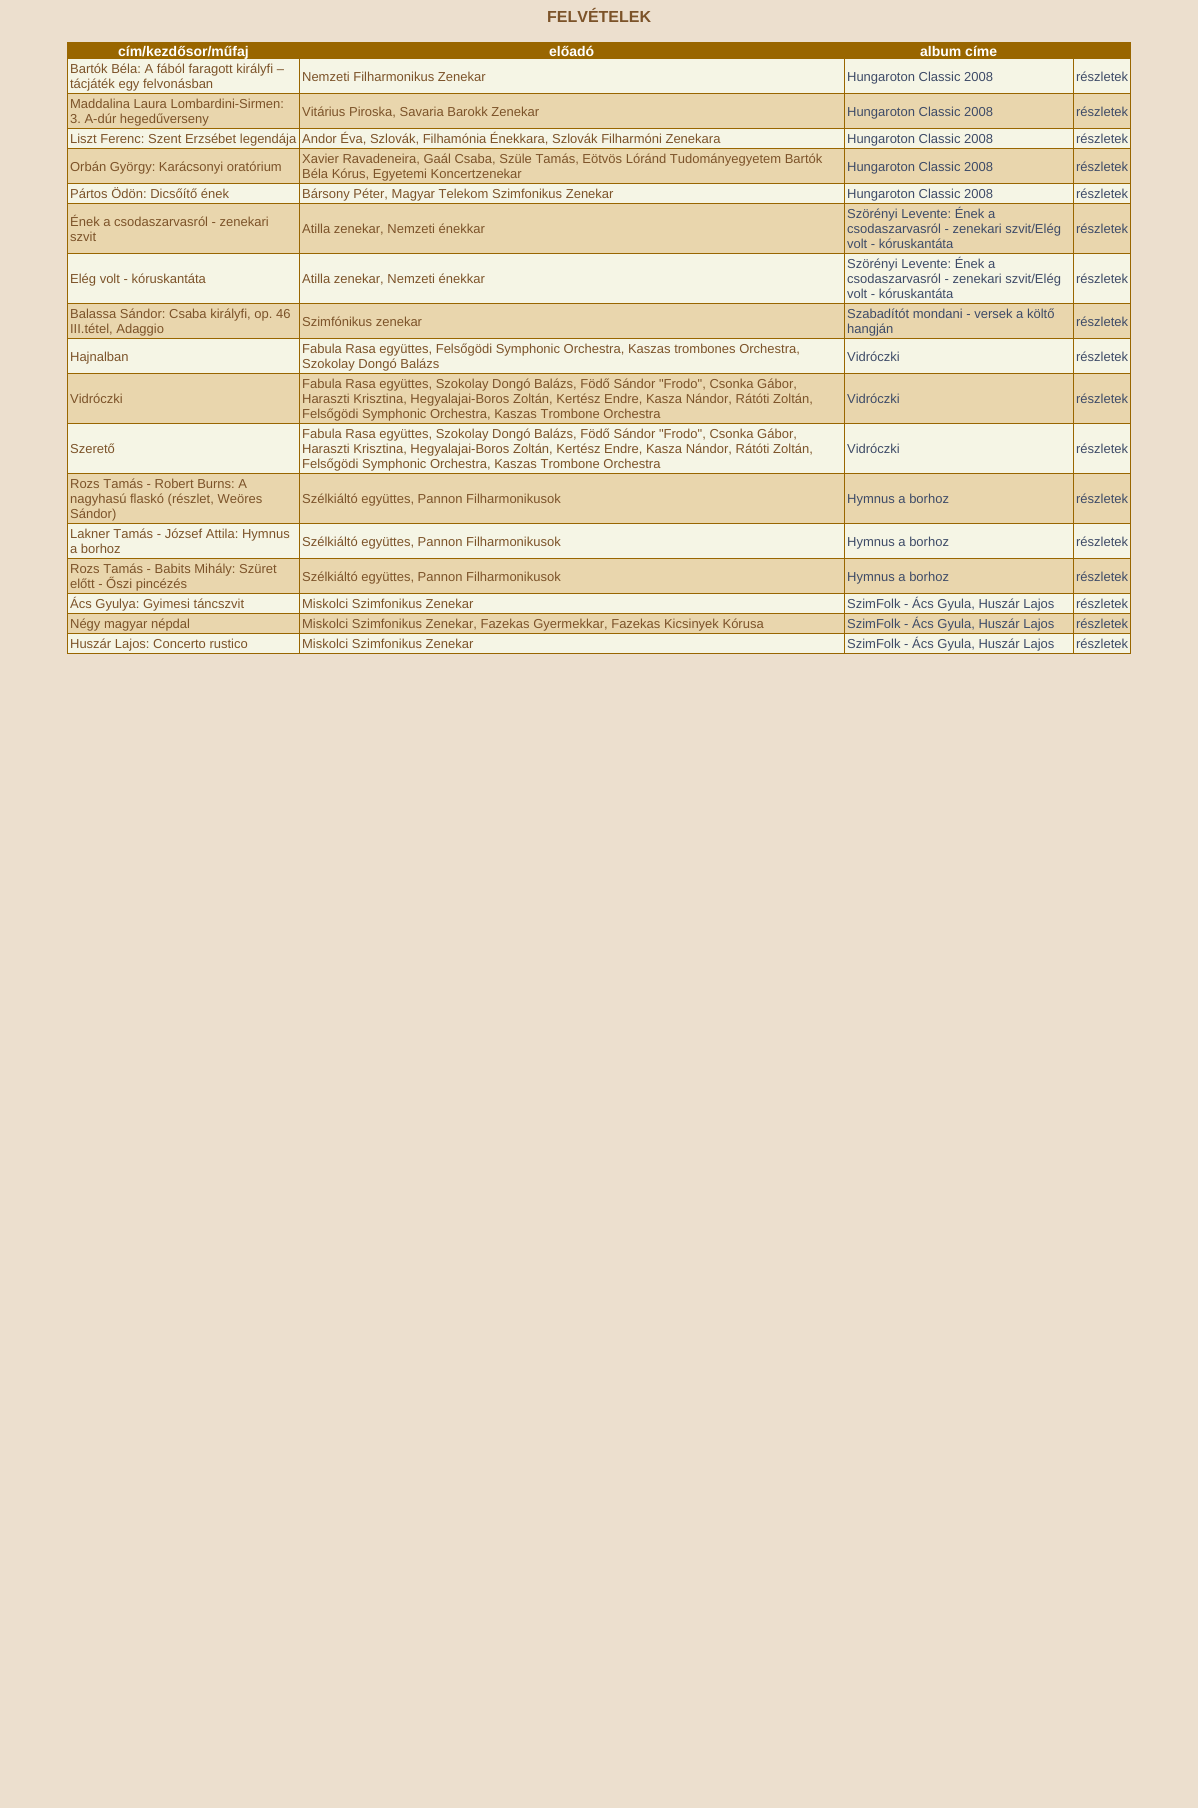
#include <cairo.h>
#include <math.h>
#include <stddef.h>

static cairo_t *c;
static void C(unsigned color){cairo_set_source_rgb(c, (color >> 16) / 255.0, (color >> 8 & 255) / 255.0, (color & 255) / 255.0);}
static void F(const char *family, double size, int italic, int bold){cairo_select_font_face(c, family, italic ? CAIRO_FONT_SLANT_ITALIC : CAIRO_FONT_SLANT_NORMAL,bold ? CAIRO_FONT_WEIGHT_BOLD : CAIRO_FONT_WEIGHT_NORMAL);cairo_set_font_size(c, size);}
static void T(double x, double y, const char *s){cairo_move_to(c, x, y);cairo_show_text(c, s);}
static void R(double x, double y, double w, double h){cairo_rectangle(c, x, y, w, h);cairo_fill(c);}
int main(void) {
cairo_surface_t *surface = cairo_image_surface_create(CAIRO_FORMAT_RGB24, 1198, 1808);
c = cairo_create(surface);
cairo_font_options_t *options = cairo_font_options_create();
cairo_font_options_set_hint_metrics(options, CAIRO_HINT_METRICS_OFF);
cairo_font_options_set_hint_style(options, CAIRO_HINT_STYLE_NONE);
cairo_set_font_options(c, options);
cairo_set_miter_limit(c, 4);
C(0xecdfce);
cairo_paint(c);
F("Liberation Sans",16,0,1);
C(0x7c5329);
T(547,22,"FELVÉTELEK");
C(0x996600);
R(67,42,1064,1);
R(1130,42,1,612);
R(67,43,1063,16);
F("Liberation Sans",14,0,1);
C(0xffffff);
T(118,56,"cím/kezdősor/műfaj");
T(549,56,"előadó");
T(920,56,"album címe");
C(0xf5f5e5);
R(68,59,1062,34);
C(0x996600);
R(67,93,1063,1);
R(67,59,1,35);
F("Liberation Sans",13,0,0);
C(0x7c5329);
T(70,73,"Bartók Béla: A fából faragott királyfi –");
T(70,88,"tácjáték egy felvonásban");
C(0x996600);
R(299,59,1,35);
C(0x7c5329);
T(302,81,"Nemzeti Filharmonikus Zenekar");
C(0x996600);
R(844,59,1,35);
C(0x3e4b67);
T(847,81,"Hungaroton Classic 2008");
C(0x996600);
R(1073,59,1,35);
C(0x3e4b67);
T(1076,81,"részletek");
C(0xe9d6ad);
R(68,94,1062,34);
C(0x996600);
R(67,128,1063,1);
R(67,94,1,35);
C(0x7c5329);
T(70,108,"Maddalina Laura Lombardini-Sirmen:");
T(70,123,"3. A-dúr hegedűverseny");
C(0x996600);
R(299,94,1,35);
C(0x7c5329);
T(302,116,"Vitárius Piroska, Savaria Barokk Zenekar");
C(0x996600);
R(844,94,1,35);
C(0x3e4b67);
T(847,116,"Hungaroton Classic 2008");
C(0x996600);
R(1073,94,1,35);
C(0x3e4b67);
T(1076,116,"részletek");
C(0xf5f5e5);
R(68,129,1062,19);
C(0x996600);
R(67,148,1063,1);
R(67,129,1,20);
C(0x7c5329);
T(70,143,"Liszt Ferenc: Szent Erzsébet legendája");
C(0x996600);
R(299,129,1,20);
C(0x7c5329);
T(302,143,"Andor Éva, Szlovák, Filhamónia Énekkara, Szlovák Filharmóni Zenekara");
C(0x996600);
R(844,129,1,20);
C(0x3e4b67);
T(847,143,"Hungaroton Classic 2008");
C(0x996600);
R(1073,129,1,20);
C(0x3e4b67);
T(1076,143,"részletek");
C(0xe9d6ad);
R(68,149,1062,34);
C(0x996600);
R(67,183,1063,1);
R(67,149,1,35);
C(0x7c5329);
T(70,171,"Orbán György: Karácsonyi oratórium");
C(0x996600);
R(299,149,1,35);
C(0x7c5329);
T(302,163,"Xavier Ravadeneira, Gaál Csaba, Szüle Tamás, Eötvös Lóránd Tudományegyetem Bartók");
T(302,178,"Béla Kórus, Egyetemi Koncertzenekar");
C(0x996600);
R(844,149,1,35);
C(0x3e4b67);
T(847,171,"Hungaroton Classic 2008");
C(0x996600);
R(1073,149,1,35);
C(0x3e4b67);
T(1076,171,"részletek");
C(0xf5f5e5);
R(68,184,1062,19);
C(0x996600);
R(67,203,1063,1);
R(67,184,1,20);
C(0x7c5329);
T(70,198,"Pártos Ödön: Dicsőítő ének");
C(0x996600);
R(299,184,1,20);
C(0x7c5329);
T(302,198,"Bársony Péter, Magyar Telekom Szimfonikus Zenekar");
C(0x996600);
R(844,184,1,20);
C(0x3e4b67);
T(847,198,"Hungaroton Classic 2008");
C(0x996600);
R(1073,184,1,20);
C(0x3e4b67);
T(1076,198,"részletek");
C(0xe9d6ad);
R(68,204,1062,49);
C(0x996600);
R(67,253,1063,1);
R(67,204,1,50);
C(0x7c5329);
T(70,226,"Ének a csodaszarvasról - zenekari");
T(70,241,"szvit");
C(0x996600);
R(299,204,1,50);
C(0x7c5329);
T(302,233,"Atilla zenekar, Nemzeti énekkar");
C(0x996600);
R(844,204,1,50);
C(0x3e4b67);
T(847,218,"Szörényi Levente: Ének a");
T(847,233,"csodaszarvasról - zenekari szvit/Elég");
T(847,248,"volt - kóruskantáta");
C(0x996600);
R(1073,204,1,50);
C(0x3e4b67);
T(1076,233,"részletek");
C(0xf5f5e5);
R(68,254,1062,49);
C(0x996600);
R(67,303,1063,1);
R(67,254,1,50);
C(0x7c5329);
T(70,283,"Elég volt - kóruskantáta");
C(0x996600);
R(299,254,1,50);
C(0x7c5329);
T(302,283,"Atilla zenekar, Nemzeti énekkar");
C(0x996600);
R(844,254,1,50);
C(0x3e4b67);
T(847,268,"Szörényi Levente: Ének a");
T(847,283,"csodaszarvasról - zenekari szvit/Elég");
T(847,298,"volt - kóruskantáta");
C(0x996600);
R(1073,254,1,50);
C(0x3e4b67);
T(1076,283,"részletek");
C(0xe9d6ad);
R(68,304,1062,34);
C(0x996600);
R(67,338,1063,1);
R(67,304,1,35);
C(0x7c5329);
T(70,318,"Balassa Sándor: Csaba királyfi, op. 46");
T(70,333,"III.tétel, Adaggio");
C(0x996600);
R(299,304,1,35);
C(0x7c5329);
T(302,326,"Szimfónikus zenekar");
C(0x996600);
R(844,304,1,35);
C(0x3e4b67);
T(847,318,"Szabadítót mondani - versek a költő");
T(847,333,"hangján");
C(0x996600);
R(1073,304,1,35);
C(0x3e4b67);
T(1076,326,"részletek");
C(0xf5f5e5);
R(68,339,1062,34);
C(0x996600);
R(67,373,1063,1);
R(67,339,1,35);
C(0x7c5329);
T(70,361,"Hajnalban");
C(0x996600);
R(299,339,1,35);
C(0x7c5329);
T(302,353,"Fabula Rasa együttes, Felsőgödi Symphonic Orchestra, Kaszas trombones Orchestra,");
T(302,368,"Szokolay Dongó Balázs");
C(0x996600);
R(844,339,1,35);
C(0x3e4b67);
T(847,361,"Vidróczki");
C(0x996600);
R(1073,339,1,35);
C(0x3e4b67);
T(1076,361,"részletek");
C(0xe9d6ad);
R(68,374,1062,49);
C(0x996600);
R(67,423,1063,1);
R(67,374,1,50);
C(0x7c5329);
T(70,403,"Vidróczki");
C(0x996600);
R(299,374,1,50);
C(0x7c5329);
T(302,388,"Fabula Rasa együttes, Szokolay Dongó Balázs, Födő Sándor \"Frodo\", Csonka Gábor,");
T(302,403,"Haraszti Krisztina, Hegyalajai-Boros Zoltán, Kertész Endre, Kasza Nándor, Rátóti Zoltán,");
T(302,418,"Felsőgödi Symphonic Orchestra, Kaszas Trombone Orchestra");
C(0x996600);
R(844,374,1,50);
C(0x3e4b67);
T(847,403,"Vidróczki");
C(0x996600);
R(1073,374,1,50);
C(0x3e4b67);
T(1076,403,"részletek");
C(0xf5f5e5);
R(68,424,1062,49);
C(0x996600);
R(67,473,1063,1);
R(67,424,1,50);
C(0x7c5329);
T(70,453,"Szerető");
C(0x996600);
R(299,424,1,50);
C(0x7c5329);
T(302,438,"Fabula Rasa együttes, Szokolay Dongó Balázs, Födő Sándor \"Frodo\", Csonka Gábor,");
T(302,453,"Haraszti Krisztina, Hegyalajai-Boros Zoltán, Kertész Endre, Kasza Nándor, Rátóti Zoltán,");
T(302,468,"Felsőgödi Symphonic Orchestra, Kaszas Trombone Orchestra");
C(0x996600);
R(844,424,1,50);
C(0x3e4b67);
T(847,453,"Vidróczki");
C(0x996600);
R(1073,424,1,50);
C(0x3e4b67);
T(1076,453,"részletek");
C(0xe9d6ad);
R(68,474,1062,49);
C(0x996600);
R(67,523,1063,1);
R(67,474,1,50);
C(0x7c5329);
T(70,488,"Rozs Tamás - Robert Burns: A");
T(70,503,"nagyhasú flaskó (részlet, Weöres");
T(70,518,"Sándor)");
C(0x996600);
R(299,474,1,50);
C(0x7c5329);
T(302,503,"Szélkiáltó együttes, Pannon Filharmonikusok");
C(0x996600);
R(844,474,1,50);
C(0x3e4b67);
T(847,503,"Hymnus a borhoz");
C(0x996600);
R(1073,474,1,50);
C(0x3e4b67);
T(1076,503,"részletek");
C(0xf5f5e5);
R(68,524,1062,34);
C(0x996600);
R(67,558,1063,1);
R(67,524,1,35);
C(0x7c5329);
T(70,538,"Lakner Tamás - József Attila: Hymnus");
T(70,553,"a borhoz");
C(0x996600);
R(299,524,1,35);
C(0x7c5329);
T(302,546,"Szélkiáltó együttes, Pannon Filharmonikusok");
C(0x996600);
R(844,524,1,35);
C(0x3e4b67);
T(847,546,"Hymnus a borhoz");
C(0x996600);
R(1073,524,1,35);
C(0x3e4b67);
T(1076,546,"részletek");
C(0xe9d6ad);
R(68,559,1062,34);
C(0x996600);
R(67,593,1063,1);
R(67,559,1,35);
C(0x7c5329);
T(70,573,"Rozs Tamás - Babits Mihály: Szüret");
T(70,588,"előtt - Őszi pincézés");
C(0x996600);
R(299,559,1,35);
C(0x7c5329);
T(302,581,"Szélkiáltó együttes, Pannon Filharmonikusok");
C(0x996600);
R(844,559,1,35);
C(0x3e4b67);
T(847,581,"Hymnus a borhoz");
C(0x996600);
R(1073,559,1,35);
C(0x3e4b67);
T(1076,581,"részletek");
C(0xf5f5e5);
R(68,594,1062,19);
C(0x996600);
R(67,613,1063,1);
R(67,594,1,20);
C(0x7c5329);
T(70,608,"Ács Gyulya: Gyimesi táncszvit");
C(0x996600);
R(299,594,1,20);
C(0x7c5329);
T(302,608,"Miskolci Szimfonikus Zenekar");
C(0x996600);
R(844,594,1,20);
C(0x3e4b67);
T(847,608,"SzimFolk - Ács Gyula, Huszár Lajos");
C(0x996600);
R(1073,594,1,20);
C(0x3e4b67);
T(1076,608,"részletek");
C(0xe9d6ad);
R(68,614,1062,19);
C(0x996600);
R(67,633,1063,1);
R(67,614,1,20);
C(0x7c5329);
T(70,628,"Négy magyar népdal");
C(0x996600);
R(299,614,1,20);
C(0x7c5329);
T(302,628,"Miskolci Szimfonikus Zenekar, Fazekas Gyermekkar, Fazekas Kicsinyek Kórusa");
C(0x996600);
R(844,614,1,20);
C(0x3e4b67);
T(847,628,"SzimFolk - Ács Gyula, Huszár Lajos");
C(0x996600);
R(1073,614,1,20);
C(0x3e4b67);
T(1076,628,"részletek");
C(0xf5f5e5);
R(68,634,1062,19);
C(0x996600);
R(67,653,1063,1);
R(67,634,1,20);
C(0x7c5329);
T(70,648,"Huszár Lajos: Concerto rustico");
C(0x996600);
R(299,634,1,20);
C(0x7c5329);
T(302,648,"Miskolci Szimfonikus Zenekar");
C(0x996600);
R(844,634,1,20);
C(0x3e4b67);
T(847,648,"SzimFolk - Ács Gyula, Huszár Lajos");
C(0x996600);
R(1073,634,1,20);
C(0x3e4b67);
T(1076,648,"részletek");
cairo_surface_write_to_png(surface, "o.png");
cairo_font_options_destroy(options);
cairo_destroy(c);
cairo_surface_destroy(surface);
return 0;
}
